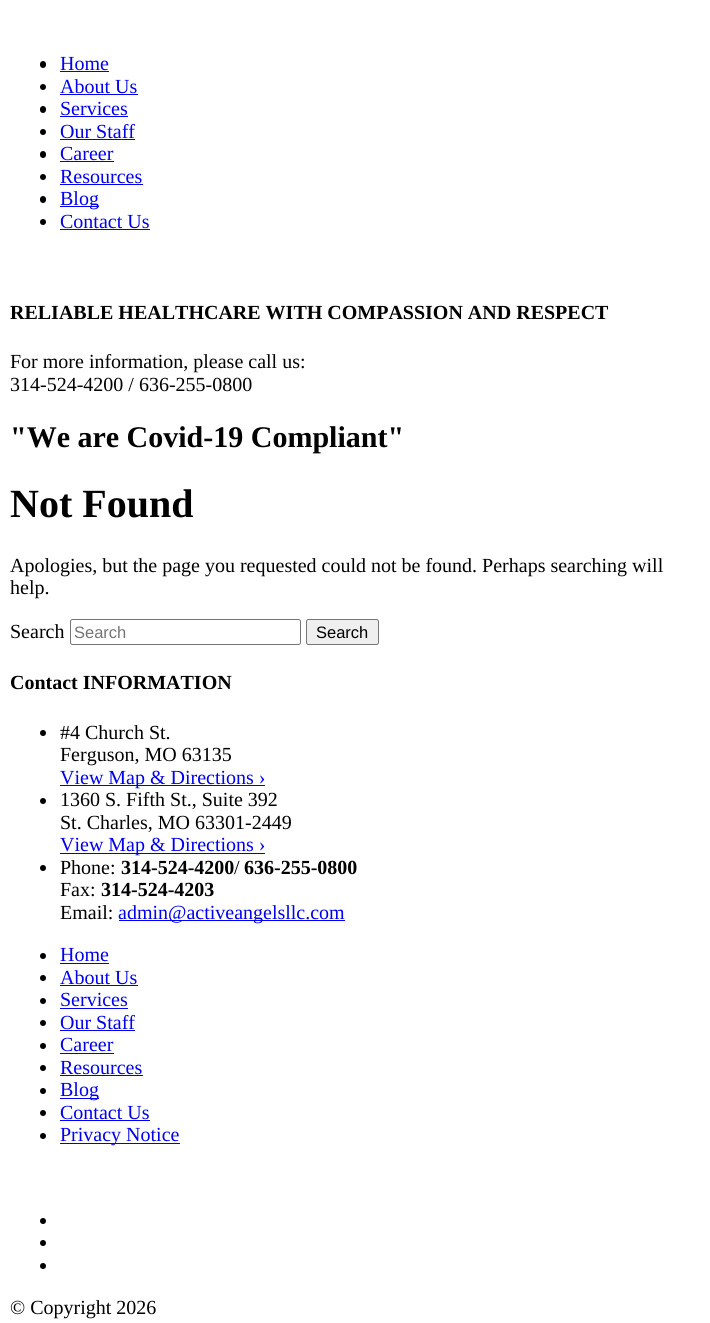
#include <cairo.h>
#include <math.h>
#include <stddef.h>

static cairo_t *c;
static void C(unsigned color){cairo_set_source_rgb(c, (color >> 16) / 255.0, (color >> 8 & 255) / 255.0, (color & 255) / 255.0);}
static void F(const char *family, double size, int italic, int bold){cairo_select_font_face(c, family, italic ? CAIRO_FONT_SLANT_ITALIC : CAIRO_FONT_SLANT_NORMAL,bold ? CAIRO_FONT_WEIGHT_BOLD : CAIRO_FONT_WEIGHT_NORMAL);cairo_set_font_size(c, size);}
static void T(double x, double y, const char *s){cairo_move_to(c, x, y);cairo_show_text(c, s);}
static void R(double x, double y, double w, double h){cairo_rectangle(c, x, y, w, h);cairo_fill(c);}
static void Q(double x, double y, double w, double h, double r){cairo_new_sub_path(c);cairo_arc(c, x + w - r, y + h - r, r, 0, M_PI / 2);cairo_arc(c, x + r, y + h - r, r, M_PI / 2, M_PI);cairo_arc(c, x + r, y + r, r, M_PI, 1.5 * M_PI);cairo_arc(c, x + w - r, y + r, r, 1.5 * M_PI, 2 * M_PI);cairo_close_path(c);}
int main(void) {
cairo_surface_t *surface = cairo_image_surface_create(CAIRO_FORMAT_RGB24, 710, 1323);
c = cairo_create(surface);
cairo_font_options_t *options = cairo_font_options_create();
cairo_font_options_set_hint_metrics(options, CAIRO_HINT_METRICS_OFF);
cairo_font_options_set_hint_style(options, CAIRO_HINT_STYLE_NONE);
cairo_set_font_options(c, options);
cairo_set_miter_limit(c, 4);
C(0xffffff);
cairo_paint(c);
C(0x000000);
Q(40,61,6,7,3);
cairo_fill(c);
F("Liberation Serif",20,0,0);
C(0x0000ee);
T(60,70,"Home");
R(60,71,49,1);
C(0x000000);
cairo_new_path(c);
cairo_arc(c,43,87,3,0,2 * M_PI);
cairo_fill(c);
C(0x0000ee);
T(60,93,"About Us");
R(60,94,78,1);
C(0x000000);
Q(40,106,6,7,3);
cairo_fill(c);
C(0x0000ee);
T(60,115,"Services");
R(60,116,68,1);
C(0x000000);
cairo_new_path(c);
cairo_arc(c,43,132,3,0,2 * M_PI);
cairo_fill(c);
C(0x0000ee);
T(60,138,"Our Staff");
R(60,139,75,1);
C(0x000000);
Q(40,151,6,7,3);
cairo_fill(c);
C(0x0000ee);
T(60,160,"Career");
R(60,161,54,1);
C(0x000000);
cairo_new_path(c);
cairo_arc(c,43,177,3,0,2 * M_PI);
cairo_fill(c);
C(0x0000ee);
T(60,183,"Resources");
R(60,184,83,1);
C(0x000000);
Q(40,196,6,7,3);
cairo_fill(c);
C(0x0000ee);
R(60,206,39,1);
T(60,205,"Blog");
C(0x000000);
cairo_new_path(c);
cairo_arc(c,43,222,3,0,2 * M_PI);
cairo_fill(c);
C(0x0000ee);
T(60,228,"Contact Us");
R(60,229,90,1);
F("Liberation Serif",20,0,1);
C(0x000000);
T(10,319,"RELIABLE HEALTHCARE WITH COMPASSION AND RESPECT");
F("Liberation Serif",20,0,0);
T(10,368,"For more information, please call us:");
T(10,391,"314-524-4200 / 636-255-0800");
F("Liberation Serif",30,0,1);
T(10,447,"\"We are Covid-19 Compliant\"");
F("Liberation Serif",40,0,1);
T(10,517,"Not Found");
F("Liberation Serif",20,0,0);
T(10,572,"Apologies, but the page you requested could not be found. Perhaps searching will");
T(10,594,"help.");
T(10,638,"Search");
Q(70.5,619.5,230,25,2);
C(0x767676);
cairo_set_line_width(c,1);
cairo_stroke(c);
F("Liberation Sans",16.5,0,0);
C(0x757575);
T(74,638,"Search");
C(0xefefef);
Q(306.5,619.5,72,25,2);
cairo_fill_preserve(c);
C(0x767676);
cairo_stroke(c);
C(0x000000);
T(316,638,"Search");
F("Liberation Serif",20,0,1);
T(10,689,"Contact INFORMATION");
cairo_new_path(c);
cairo_arc(c,43,733,3,0,2 * M_PI);
cairo_fill(c);
F("Liberation Serif",20,0,0);
T(60,739,"#4 Church St.");
T(60,761,"Ferguson, MO 63135");
C(0x0000ee);
R(60,785,205,1);
T(60,784,"View Map & Directions ›");
C(0x000000);
cairo_new_path(c);
cairo_arc(c,43,801,3,0,2 * M_PI);
cairo_fill(c);
T(60,806,"1360 S. Fifth St., Suite 392");
T(60,829,"St. Charles, MO 63301-2449");
C(0x0000ee);
R(60,853,205,1);
T(60,851,"View Map & Directions ›");
C(0x000000);
cairo_new_path(c);
cairo_arc(c,43,868,3,0,2 * M_PI);
cairo_fill(c);
T(60,874,"Phone:");
F("Liberation Serif",20,0,1);
T(121,874,"314-524-4200");
F("Liberation Serif",20,0,0);
T(234,874,"/");
F("Liberation Serif",20,0,1);
T(244,874,"636-255-0800");
F("Liberation Serif",20,0,0);
T(60,896,"Fax:");
F("Liberation Serif",20,0,1);
T(101,896,"314-524-4203");
F("Liberation Serif",20,0,0);
T(60,919,"Email:");
C(0x0000ee);
R(119,920,226,1);
T(118,919,"admin@activeangelsllc.com");
C(0x000000);
cairo_new_path(c);
cairo_arc(c,43,956,3,0,2 * M_PI);
cairo_fill(c);
C(0x0000ee);
T(60,961,"Home");
R(60,963,49,1);
C(0x000000);
cairo_new_path(c);
cairo_arc(c,43,978,3,0,2 * M_PI);
cairo_fill(c);
C(0x0000ee);
T(60,984,"About Us");
R(60,985,78,1);
C(0x000000);
cairo_new_path(c);
cairo_arc(c,43,1001,3,0,2 * M_PI);
cairo_fill(c);
C(0x0000ee);
T(60,1006,"Services");
R(60,1008,68,1);
C(0x000000);
cairo_new_path(c);
cairo_arc(c,43,1023,3,0,2 * M_PI);
cairo_fill(c);
C(0x0000ee);
T(60,1029,"Our Staff");
R(60,1030,75,1);
C(0x000000);
cairo_new_path(c);
cairo_arc(c,43,1046,3,0,2 * M_PI);
cairo_fill(c);
C(0x0000ee);
T(60,1051,"Career");
R(60,1053,54,1);
C(0x000000);
cairo_new_path(c);
cairo_arc(c,43,1068,3,0,2 * M_PI);
cairo_fill(c);
C(0x0000ee);
T(60,1074,"Resources");
R(60,1075,83,1);
C(0x000000);
cairo_new_path(c);
cairo_arc(c,43,1091,3,0,2 * M_PI);
cairo_fill(c);
C(0x0000ee);
R(60,1098,39,1);
T(60,1096,"Blog");
C(0x000000);
cairo_new_path(c);
cairo_arc(c,43,1113,3,0,2 * M_PI);
cairo_fill(c);
C(0x0000ee);
T(60,1119,"Contact Us");
R(60,1120,90,1);
C(0x000000);
cairo_new_path(c);
cairo_arc(c,43,1136,3,0,2 * M_PI);
cairo_fill(c);
C(0x0000ee);
R(60,1143,120,1);
T(60,1141,"Privacy Notice");
C(0x000000);
cairo_new_path(c);
cairo_arc(c,43,1221,3,0,2 * M_PI);
cairo_fill(c);
cairo_arc(c,43,1243,3,0,2 * M_PI);
cairo_fill(c);
cairo_arc(c,43,1266,3,0,2 * M_PI);
cairo_fill(c);
T(10,1314,"© Copyright 2026");
cairo_surface_write_to_png(surface, "o.png");
cairo_font_options_destroy(options);
cairo_destroy(c);
cairo_surface_destroy(surface);
return 0;
}
